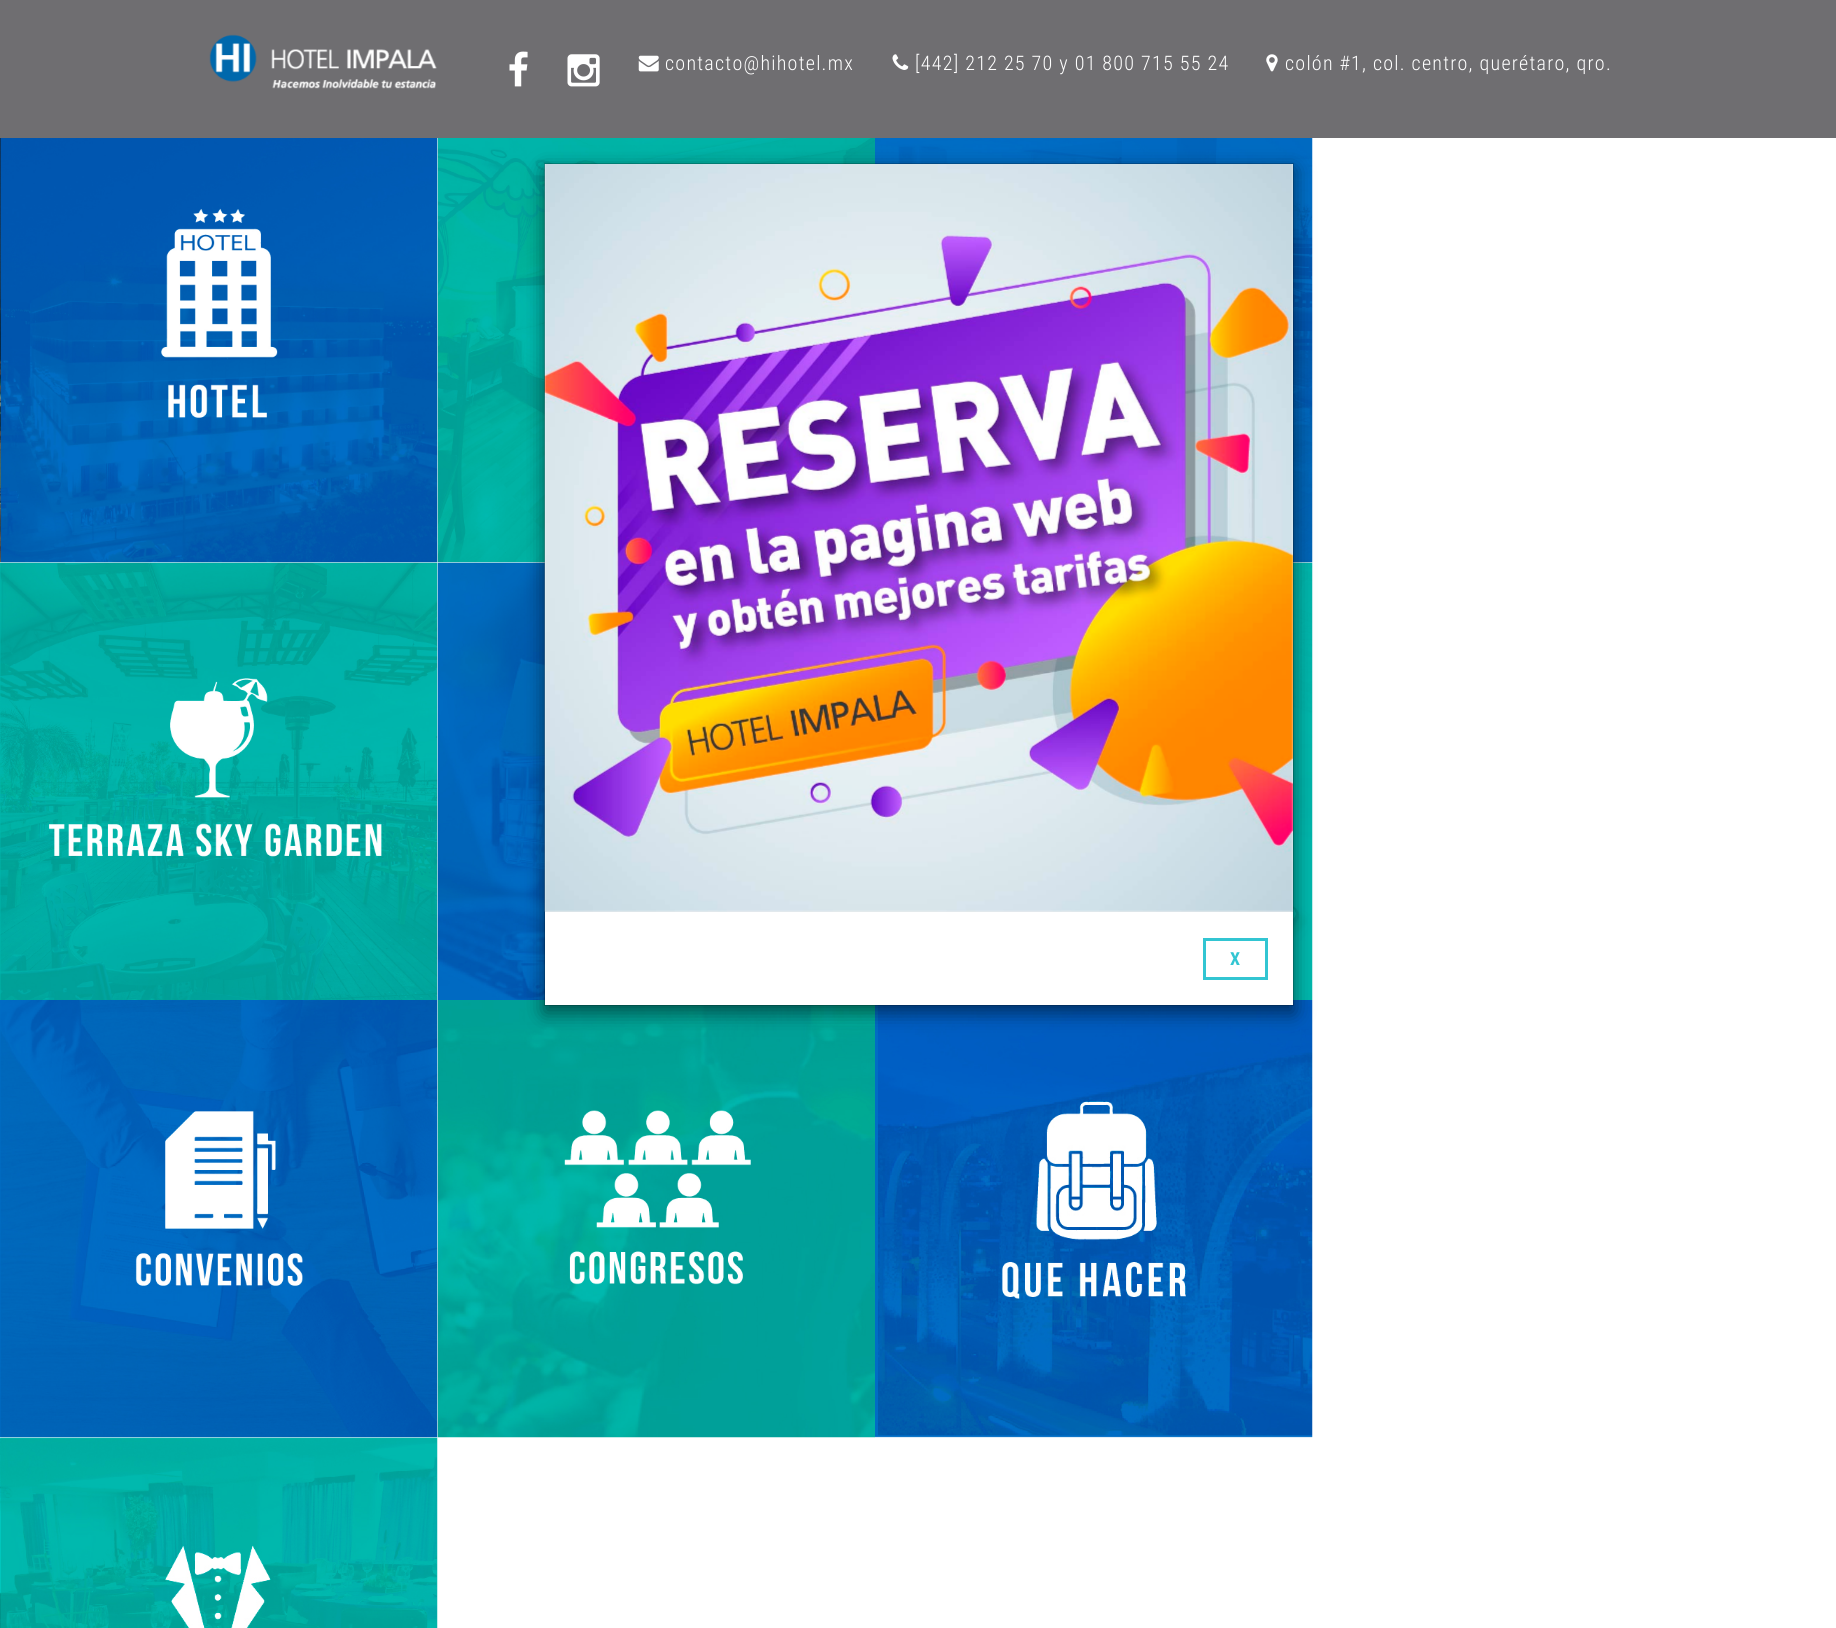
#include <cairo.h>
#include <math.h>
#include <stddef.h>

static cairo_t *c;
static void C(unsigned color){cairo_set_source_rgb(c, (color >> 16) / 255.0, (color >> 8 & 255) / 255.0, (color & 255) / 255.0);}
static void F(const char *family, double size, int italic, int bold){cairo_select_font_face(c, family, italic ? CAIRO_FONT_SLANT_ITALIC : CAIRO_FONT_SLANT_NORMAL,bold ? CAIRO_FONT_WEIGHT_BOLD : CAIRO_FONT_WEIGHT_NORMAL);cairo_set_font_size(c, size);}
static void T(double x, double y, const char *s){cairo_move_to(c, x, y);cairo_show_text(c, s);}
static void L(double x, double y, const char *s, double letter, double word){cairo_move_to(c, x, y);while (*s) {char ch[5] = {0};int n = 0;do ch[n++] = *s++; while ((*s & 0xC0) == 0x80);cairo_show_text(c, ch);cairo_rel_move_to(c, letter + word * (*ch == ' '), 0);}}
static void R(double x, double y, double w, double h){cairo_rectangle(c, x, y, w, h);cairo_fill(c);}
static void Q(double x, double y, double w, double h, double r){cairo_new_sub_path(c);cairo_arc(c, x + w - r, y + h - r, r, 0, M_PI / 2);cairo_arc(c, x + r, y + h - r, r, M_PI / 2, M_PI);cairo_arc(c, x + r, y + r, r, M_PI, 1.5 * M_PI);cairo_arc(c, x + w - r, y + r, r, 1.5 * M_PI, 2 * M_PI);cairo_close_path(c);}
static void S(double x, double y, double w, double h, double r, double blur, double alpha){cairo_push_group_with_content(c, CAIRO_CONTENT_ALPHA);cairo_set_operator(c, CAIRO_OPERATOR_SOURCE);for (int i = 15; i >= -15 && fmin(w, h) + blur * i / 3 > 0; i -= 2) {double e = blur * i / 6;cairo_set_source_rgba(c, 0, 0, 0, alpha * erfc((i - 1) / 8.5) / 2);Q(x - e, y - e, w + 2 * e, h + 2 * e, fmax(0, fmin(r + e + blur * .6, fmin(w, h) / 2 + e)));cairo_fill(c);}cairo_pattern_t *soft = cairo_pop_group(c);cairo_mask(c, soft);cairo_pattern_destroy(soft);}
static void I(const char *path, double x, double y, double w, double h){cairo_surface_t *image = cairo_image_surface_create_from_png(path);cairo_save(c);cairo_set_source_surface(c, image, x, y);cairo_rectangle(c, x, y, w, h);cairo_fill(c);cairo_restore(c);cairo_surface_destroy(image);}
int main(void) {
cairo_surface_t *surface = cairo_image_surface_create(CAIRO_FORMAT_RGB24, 1836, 1628);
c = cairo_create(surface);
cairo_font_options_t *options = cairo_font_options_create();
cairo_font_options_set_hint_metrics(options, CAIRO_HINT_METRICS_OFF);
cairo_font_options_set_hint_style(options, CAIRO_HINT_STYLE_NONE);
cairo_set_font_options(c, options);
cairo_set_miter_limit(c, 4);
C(0xffffff);
cairo_paint(c);
C(0x6f6e71);
R(0,0,1836,138);
I("1.png",209,34,228,55);
I("2.png",509,51,19,36);
I("3.png",567,54,33,33);
I("4.png",638,55,21,17);
F("Roboto Condensed Light",20,0,0);
C(0xffffff);
L(665,70,"contacto@hihotel.mx",1.25,0);
I("5.png",892,54,17,16);
L(915,70,"[442] 212 25 70 y 01 800 715 55 24",1.25,0);
I("6.png",1266,54,12,18);
L(1285,70,"colón #1, col. centro, querétaro, qro.",1.25,0);
I("7.png",0,138,438,425);
I("8.png",437,138,438,425);
I("9.png",875,138,438,425);
I("10.png",0,562,438,438);
I("11.png",437,562,108,438);
I("13.png",1293,562,20,438);
I("14.png",0,1000,438,438);
I("15.png",437,1000,438,438);
I("16.png",875,1000,438,438);
C(0x000000);
S(544,169,750,844,0,9.5,.5);
C(0xffffff);
R(545,164,748,841);
cairo_rectangle(c,544.5,163.5,749,842);
cairo_set_source_rgba(c,0,0,0,0.2);
cairo_set_line_width(c,1);
cairo_stroke(c);
C(0xeeeeee);
R(545,911,748,1);
I("12.png",544,164,749,748);
cairo_rectangle(c,1204.5,939.5,62,39);
C(0x32c5d2);
cairo_set_line_width(c,3);
cairo_stroke(c);
F("Roboto Condensed",18,0,1);
T(1230,965,"X");
I("17.png",0,1437,438,191);
cairo_surface_write_to_png(surface, "o.png");
cairo_font_options_destroy(options);
cairo_destroy(c);
cairo_surface_destroy(surface);
return 0;
}
